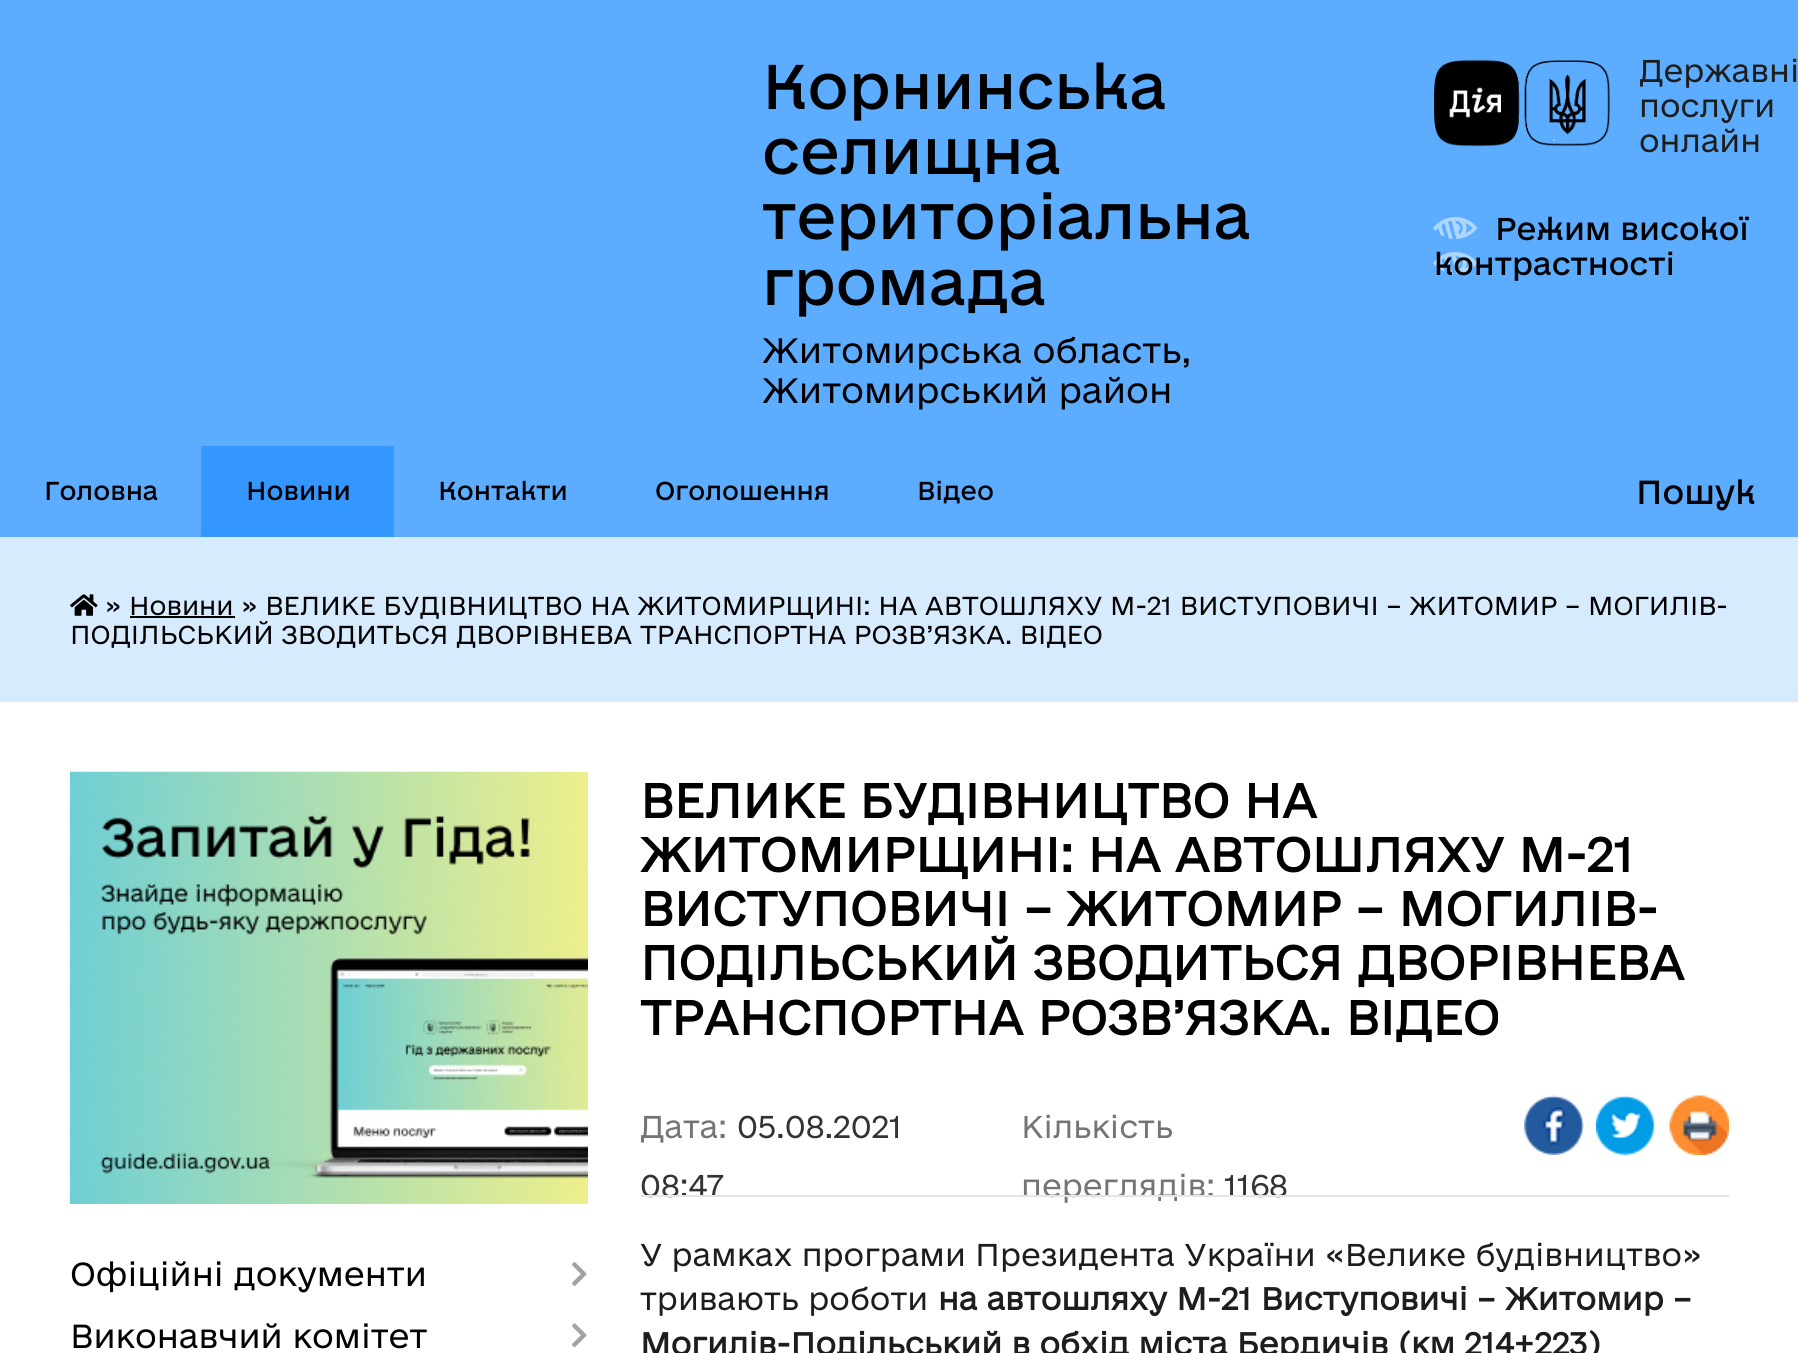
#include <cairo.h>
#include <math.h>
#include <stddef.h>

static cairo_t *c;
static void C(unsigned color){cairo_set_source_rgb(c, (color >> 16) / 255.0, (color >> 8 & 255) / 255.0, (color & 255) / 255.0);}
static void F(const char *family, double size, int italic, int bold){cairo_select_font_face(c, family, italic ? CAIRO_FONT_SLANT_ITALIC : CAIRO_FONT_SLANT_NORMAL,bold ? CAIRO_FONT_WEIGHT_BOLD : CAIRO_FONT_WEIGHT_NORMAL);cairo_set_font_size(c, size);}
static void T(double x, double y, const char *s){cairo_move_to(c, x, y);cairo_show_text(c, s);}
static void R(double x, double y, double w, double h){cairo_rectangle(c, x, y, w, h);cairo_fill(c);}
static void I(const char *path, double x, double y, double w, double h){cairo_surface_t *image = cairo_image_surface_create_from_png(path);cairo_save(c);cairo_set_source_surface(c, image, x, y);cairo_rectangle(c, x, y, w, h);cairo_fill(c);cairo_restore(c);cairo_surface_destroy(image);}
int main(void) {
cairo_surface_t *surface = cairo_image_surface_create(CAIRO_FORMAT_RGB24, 1798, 1353);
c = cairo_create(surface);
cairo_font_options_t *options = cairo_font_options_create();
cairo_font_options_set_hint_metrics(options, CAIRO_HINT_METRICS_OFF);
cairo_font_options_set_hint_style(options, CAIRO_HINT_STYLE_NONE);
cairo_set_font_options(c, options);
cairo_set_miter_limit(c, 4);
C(0xffffff);
cairo_paint(c);
C(0x5cacff);
R(0,0,1798,537);
F("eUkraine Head",59.5,0,0);
C(0x000000);
T(762,109,"Корнинська");
T(762,174,"селищна");
T(762,239,"територіальна");
T(762,305,"громада");
F("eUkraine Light",33.25,0,0);
T(762,363,"Житомирська область,");
T(762,403,"Житомирський район");
I("1.png",1434,60,176,87);
F("eUkraine Light",29.75,0,0);
C(0x1d1d1b);
T(1639,82,"Державні");
T(1639,117,"послуги");
T(1639,152,"онлайн");
I("2.png",1433,217,44,58);
F("eUkraine Head",29.75,0,0);
C(0x000000);
T(1495,240,"Режим високої");
T(1434,275,"контрастності");
F("eUkraine Head",24.5,0,0);
T(44,500,"Головна");
C(0x3397ff);
R(201,446,193,91);
C(0x000000);
T(246,500,"Новини");
T(438,500,"Контакти");
T(655,500,"Оголошення");
T(917,500,"Відео");
F("eUkraine Head",31.5,0,0);
T(1636,504,"Пошук");
C(0xd7ebff);
R(0,537,1798,165);
I("3.png",70,594,28,22);
F("eUkraine Light",24.5,0,0);
C(0x000000);
T(105,615,"» Новини » ВЕЛИКЕ БУДІВНИЦТВО НА ЖИТОМИРЩИНІ: НА АВТОШЛЯХУ М-21 ВИСТУПОВИЧІ – ЖИТОМИР – МОГИЛІВ-");
R(130,616,105,2);
T(70,644,"ПОДІЛЬСЬКИЙ ЗВОДИТЬСЯ ДВОРІВНЕВА ТРАНСПОРТНА РОЗВ’ЯЗКА. ВІДЕО");
I("4.png",70,771,518,433);
F("eUkraine Light",31.5,0,0);
T(70,1286,"Офіційні документи");
I("5.png",572,1262,15,24);
T(70,1348,"Виконавчий комітет");
I("6.png",572,1323,15,25);
F("eUkraine",45.5,0,1);
T(640,818,"ВЕЛИКЕ БУДІВНИЦТВО НА");
T(640,872,"ЖИТОМИРЩИНІ: НА АВТОШЛЯХУ М-21");
T(640,926,"ВИСТУПОВИЧІ – ЖИТОМИР – МОГИЛІВ-");
T(640,980,"ПОДІЛЬСЬКИЙ ЗВОДИТЬСЯ ДВОРІВНЕВА");
T(640,1035,"ТРАНСПОРТНА РОЗВ’ЯЗКА. ВІДЕО");
F("eUkraine Light",29.75,0,0);
C(0x757575);
T(640,1138,"Дата:");
C(0x333333);
T(737,1138,"05.08.2021");
T(640,1197,"08:47");
C(0x757575);
T(1021,1138,"Кількість");
T(1021,1197,"переглядів:");
C(0x333333);
T(1224,1197,"1168");
I("7.png",1524,1095,60,60);
I("8.png",1596,1095,59,60);
I("9.png",1669,1095,60,60);
C(0xe5e5e5);
R(641,1195,1088,2);
C(0x1d1d1b);
T(640,1266,"У рамках програми Президента України «Велике будівництво»");
T(640,1310,"тривають роботи");
F("eUkraine",29.75,0,1);
T(938,1310,"на автошляху М-21 Виступовичі – Житомир –");
T(640,1355,"Могилів-Подільський в обхід міста Бердичів (км 214+223)");
cairo_surface_write_to_png(surface, "o.png");
cairo_font_options_destroy(options);
cairo_destroy(c);
cairo_surface_destroy(surface);
return 0;
}
